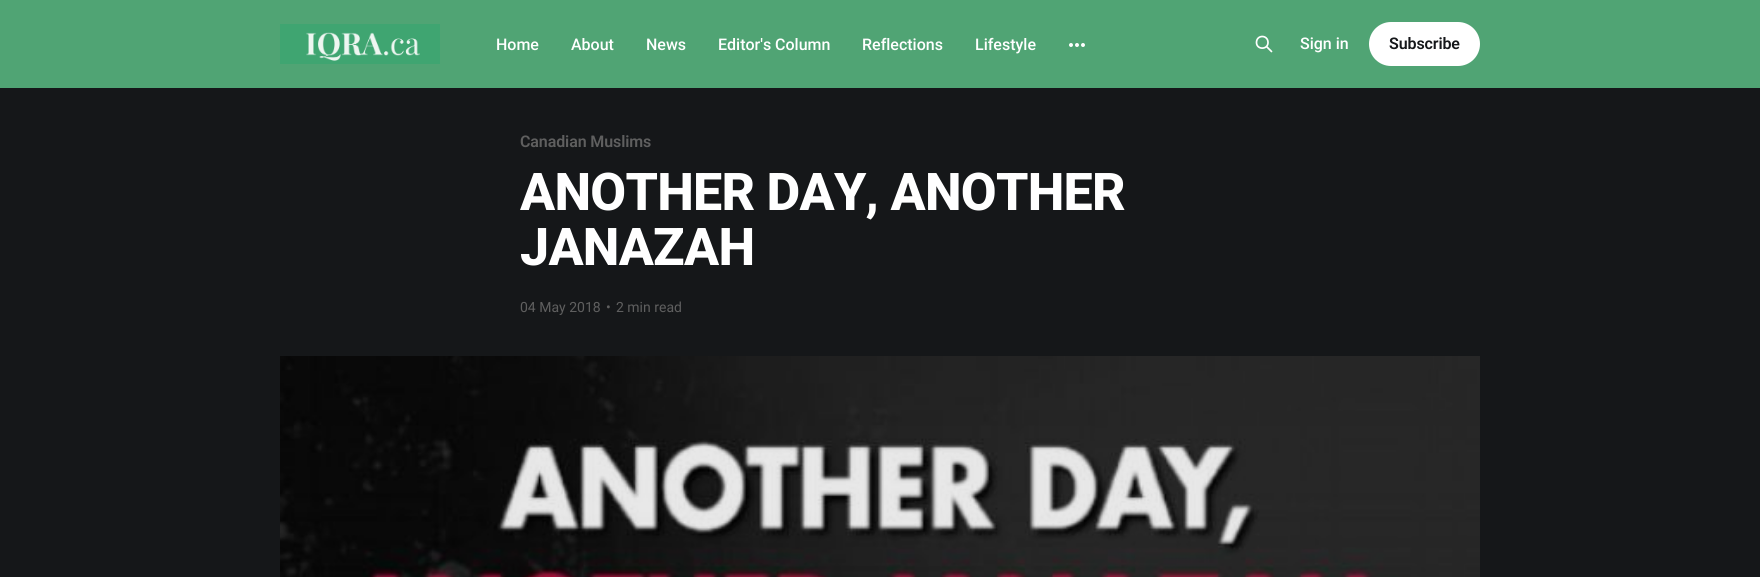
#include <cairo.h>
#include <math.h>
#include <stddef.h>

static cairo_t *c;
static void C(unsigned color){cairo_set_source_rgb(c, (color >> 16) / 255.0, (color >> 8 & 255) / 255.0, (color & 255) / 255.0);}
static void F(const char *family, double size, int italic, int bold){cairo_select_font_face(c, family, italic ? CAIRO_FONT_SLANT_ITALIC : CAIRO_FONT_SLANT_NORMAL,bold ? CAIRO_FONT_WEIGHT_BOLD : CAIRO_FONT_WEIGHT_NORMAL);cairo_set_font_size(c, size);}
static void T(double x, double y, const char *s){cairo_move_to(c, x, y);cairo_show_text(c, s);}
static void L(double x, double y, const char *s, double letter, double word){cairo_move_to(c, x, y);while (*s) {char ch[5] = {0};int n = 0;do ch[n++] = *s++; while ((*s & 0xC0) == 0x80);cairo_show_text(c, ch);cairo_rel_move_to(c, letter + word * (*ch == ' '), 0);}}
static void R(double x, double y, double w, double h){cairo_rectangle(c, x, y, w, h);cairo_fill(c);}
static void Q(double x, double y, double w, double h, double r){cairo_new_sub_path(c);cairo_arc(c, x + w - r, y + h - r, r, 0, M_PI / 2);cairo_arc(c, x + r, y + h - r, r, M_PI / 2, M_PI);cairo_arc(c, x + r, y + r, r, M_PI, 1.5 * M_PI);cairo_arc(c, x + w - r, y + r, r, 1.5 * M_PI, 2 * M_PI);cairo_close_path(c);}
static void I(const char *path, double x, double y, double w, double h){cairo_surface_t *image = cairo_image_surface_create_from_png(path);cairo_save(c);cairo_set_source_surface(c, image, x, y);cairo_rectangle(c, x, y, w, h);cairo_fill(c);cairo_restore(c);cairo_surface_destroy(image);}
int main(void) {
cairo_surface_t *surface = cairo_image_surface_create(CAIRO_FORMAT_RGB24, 1760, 577);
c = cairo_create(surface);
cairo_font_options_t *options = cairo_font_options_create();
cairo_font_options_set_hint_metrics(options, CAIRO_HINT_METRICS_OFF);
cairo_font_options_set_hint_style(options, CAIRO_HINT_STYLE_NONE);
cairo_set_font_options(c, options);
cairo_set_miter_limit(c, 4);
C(0x151719);
cairo_paint(c);
C(0x50a474);
R(0,0,1760,88);
I("1.png",280,24,160,40);
F("Roboto Medium",16,0,0);
C(0xffffff);
T(496,50,"Home");
T(571,50,"About");
T(646,50,"News");
T(718,50,"Editor's Column");
T(862,50,"Reflections");
T(975,50,"Lifestyle");
I("2.png",1069,43,16,4);
cairo_new_path(c);
cairo_move_to(c,1271.5,51.5);
cairo_line_to(c,1266.5,46.5);
cairo_move_to(c,1268,42.5);
cairo_curve_to(c,1268,50,1256.5,50,1256.5,42.5);
cairo_curve_to(c,1256.5,34.5,1268,34.5,1268,42.5);
cairo_close_path(c);
cairo_set_line_width(c,1.7);
cairo_set_line_cap(c,CAIRO_LINE_CAP_ROUND);
cairo_set_line_join(c,CAIRO_LINE_JOIN_ROUND);
cairo_stroke(c);
T(1300,49,"Sign in");
Q(1369,22,111,44,22);
cairo_fill(c);
F("Roboto SemiBold",16,0,0);
C(0x15171a);
L(1389,49,"Subscribe",-.1,0);
C(0x5f5f5f);
L(520,147,"Canadian Muslims",-.1,0);
F("Roboto ExtraBold",52,0,0);
C(0xffffff);
L(520,210,"ANOTHER DAY, ANOTHER",-.75,0);
L(520,265,"JANAZAH",-.75,0);
F("Roboto",14,0,0);
C(0x5f5f5f);
T(520,312,"04 May 2018");
T(606,312,"•");
T(616,312,"2 min read");
I("3.png",280,356,1200,221);
cairo_surface_write_to_png(surface, "o.png");
cairo_font_options_destroy(options);
cairo_destroy(c);
cairo_surface_destroy(surface);
return 0;
}
